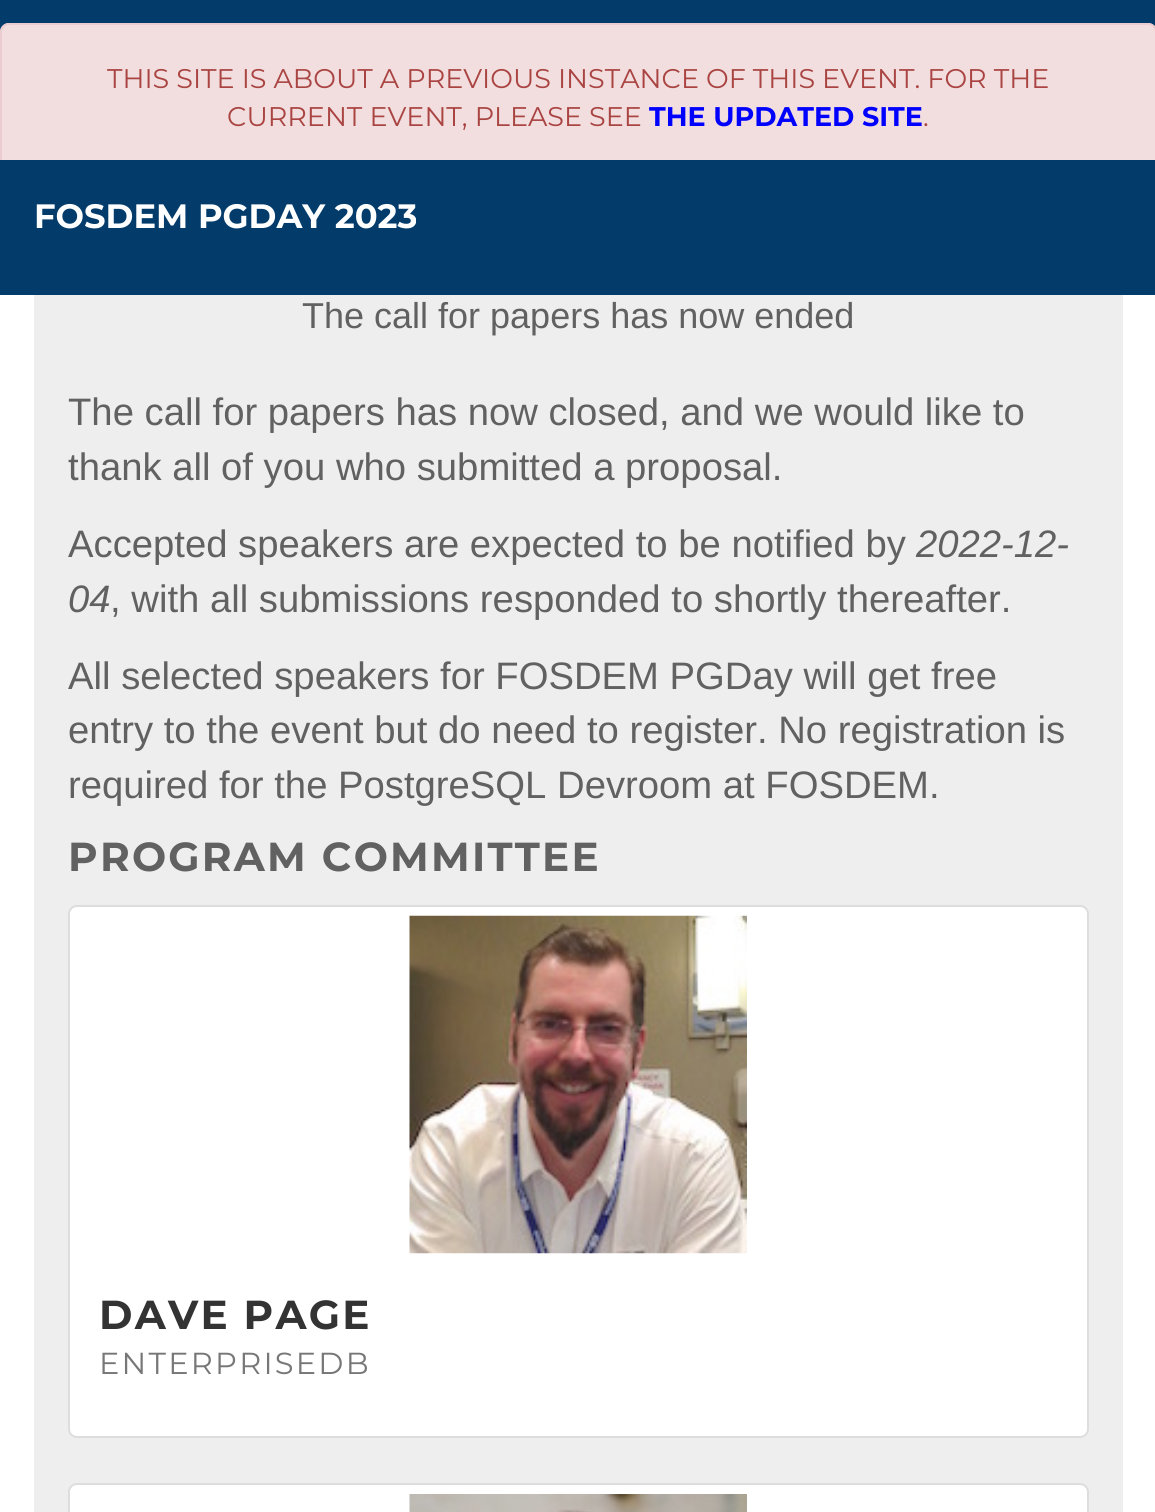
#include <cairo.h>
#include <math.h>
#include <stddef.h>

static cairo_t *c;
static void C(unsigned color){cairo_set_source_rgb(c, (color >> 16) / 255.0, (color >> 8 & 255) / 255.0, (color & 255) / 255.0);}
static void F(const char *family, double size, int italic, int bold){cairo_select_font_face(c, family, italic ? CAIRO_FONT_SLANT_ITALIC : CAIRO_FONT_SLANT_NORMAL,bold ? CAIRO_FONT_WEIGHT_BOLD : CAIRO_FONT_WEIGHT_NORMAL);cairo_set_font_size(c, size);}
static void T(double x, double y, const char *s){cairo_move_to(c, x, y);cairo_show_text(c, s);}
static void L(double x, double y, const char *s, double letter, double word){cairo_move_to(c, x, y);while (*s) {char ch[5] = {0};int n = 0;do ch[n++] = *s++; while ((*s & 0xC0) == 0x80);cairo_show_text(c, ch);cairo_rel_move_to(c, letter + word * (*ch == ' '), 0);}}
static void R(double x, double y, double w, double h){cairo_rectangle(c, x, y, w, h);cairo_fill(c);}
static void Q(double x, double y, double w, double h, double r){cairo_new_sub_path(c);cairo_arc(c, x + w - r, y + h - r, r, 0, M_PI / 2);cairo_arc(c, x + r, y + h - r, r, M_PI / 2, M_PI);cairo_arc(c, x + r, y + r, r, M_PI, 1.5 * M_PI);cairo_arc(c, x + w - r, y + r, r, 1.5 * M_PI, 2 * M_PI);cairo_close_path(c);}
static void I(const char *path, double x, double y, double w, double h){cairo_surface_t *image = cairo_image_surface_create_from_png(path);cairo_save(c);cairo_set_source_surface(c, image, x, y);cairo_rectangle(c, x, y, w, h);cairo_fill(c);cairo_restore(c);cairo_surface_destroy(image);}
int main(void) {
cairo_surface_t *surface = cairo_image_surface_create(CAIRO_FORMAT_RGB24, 1155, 1512);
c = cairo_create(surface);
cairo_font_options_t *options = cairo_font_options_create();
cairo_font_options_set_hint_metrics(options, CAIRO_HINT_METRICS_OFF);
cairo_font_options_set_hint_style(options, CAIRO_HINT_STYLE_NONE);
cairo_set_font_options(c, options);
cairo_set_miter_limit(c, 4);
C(0xffffff);
cairo_paint(c);
C(0x033c6b);
R(0,0,1155,295);
C(0xf2dede);
cairo_new_path(c);
cairo_move_to(c,9,23);
cairo_line_to(c,1148,23);
cairo_curve_to(c,1153,23,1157,27,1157,32);
cairo_line_to(c,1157,160);
cairo_line_to(c,0,160);
cairo_line_to(c,0,32);
cairo_curve_to(c,0,27,4,23,9,23);
cairo_close_path(c);
cairo_fill(c);
cairo_save(c);
cairo_rectangle(c,0,0,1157,160);
cairo_clip(c);
Q(1,24,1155,146,8);
C(0xebccd1);
cairo_stroke(c);
cairo_restore(c);
F("Montserrat",27,0,0);
C(0xa94442);
T(107,88,"THIS SITE IS ABOUT A PREVIOUS INSTANCE OF THIS EVENT. FOR THE");
T(227,126,"CURRENT EVENT, PLEASE SEE");
F("Montserrat",27,0,1);
C(0x0000ff);
T(649,126,"THE UPDATED SITE");
F("Montserrat",27,0,0);
C(0xa94442);
T(923,126,".");
F("Montserrat",33.75,0,1);
C(0xffffff);
T(34,228,"FOSDEM PGDAY 2023");
C(0xeeeeee);
R(34,295,1089,1217);
F("Liberation Sans",36,0,0);
C(0x616161);
T(302,328,"The call for papers has now ended");
F("Liberation Sans",38.25,0,0);
T(68,425,"The call for papers has now closed, and we would like to");
T(68,480,"thank all of you who submitted a proposal.");
T(68,557,"Accepted speakers are expected to be notified by");
F("Liberation Sans",38.25,1,0);
T(916,557,"2022-12-");
T(68,612,"04");
F("Liberation Sans",38.25,0,0);
T(110,612,", with all submissions responded to shortly thereafter.");
T(68,689,"All selected speakers for FOSDEM PGDay will get free");
T(68,743,"entry to the event but do need to register. No registration is");
T(68,798,"required for the PostgreSQL Devroom at FOSDEM.");
F("Montserrat",40.5,0,1);
L(68,871,"PROGRAM COMMITTEE",2.25,0);
C(0xffffff);
Q(69,906,1019,531,8);
cairo_fill_preserve(c);
C(0xdddddd);
cairo_stroke(c);
I("1.png",409,915,338,339);
C(0x333333);
L(99,1329,"DAVE PAGE",2.25,0);
F("Montserrat",30.4,0,0);
C(0x777777);
L(99,1374,"ENTERPRISEDB",2.25,0);
C(0xffffff);
Q(69,1484,1019,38,8);
cairo_fill_preserve(c);
C(0xdddddd);
cairo_stroke(c);
I("2.png",409,1494,338,18);
cairo_surface_write_to_png(surface, "o.png");
cairo_font_options_destroy(options);
cairo_destroy(c);
cairo_surface_destroy(surface);
return 0;
}
